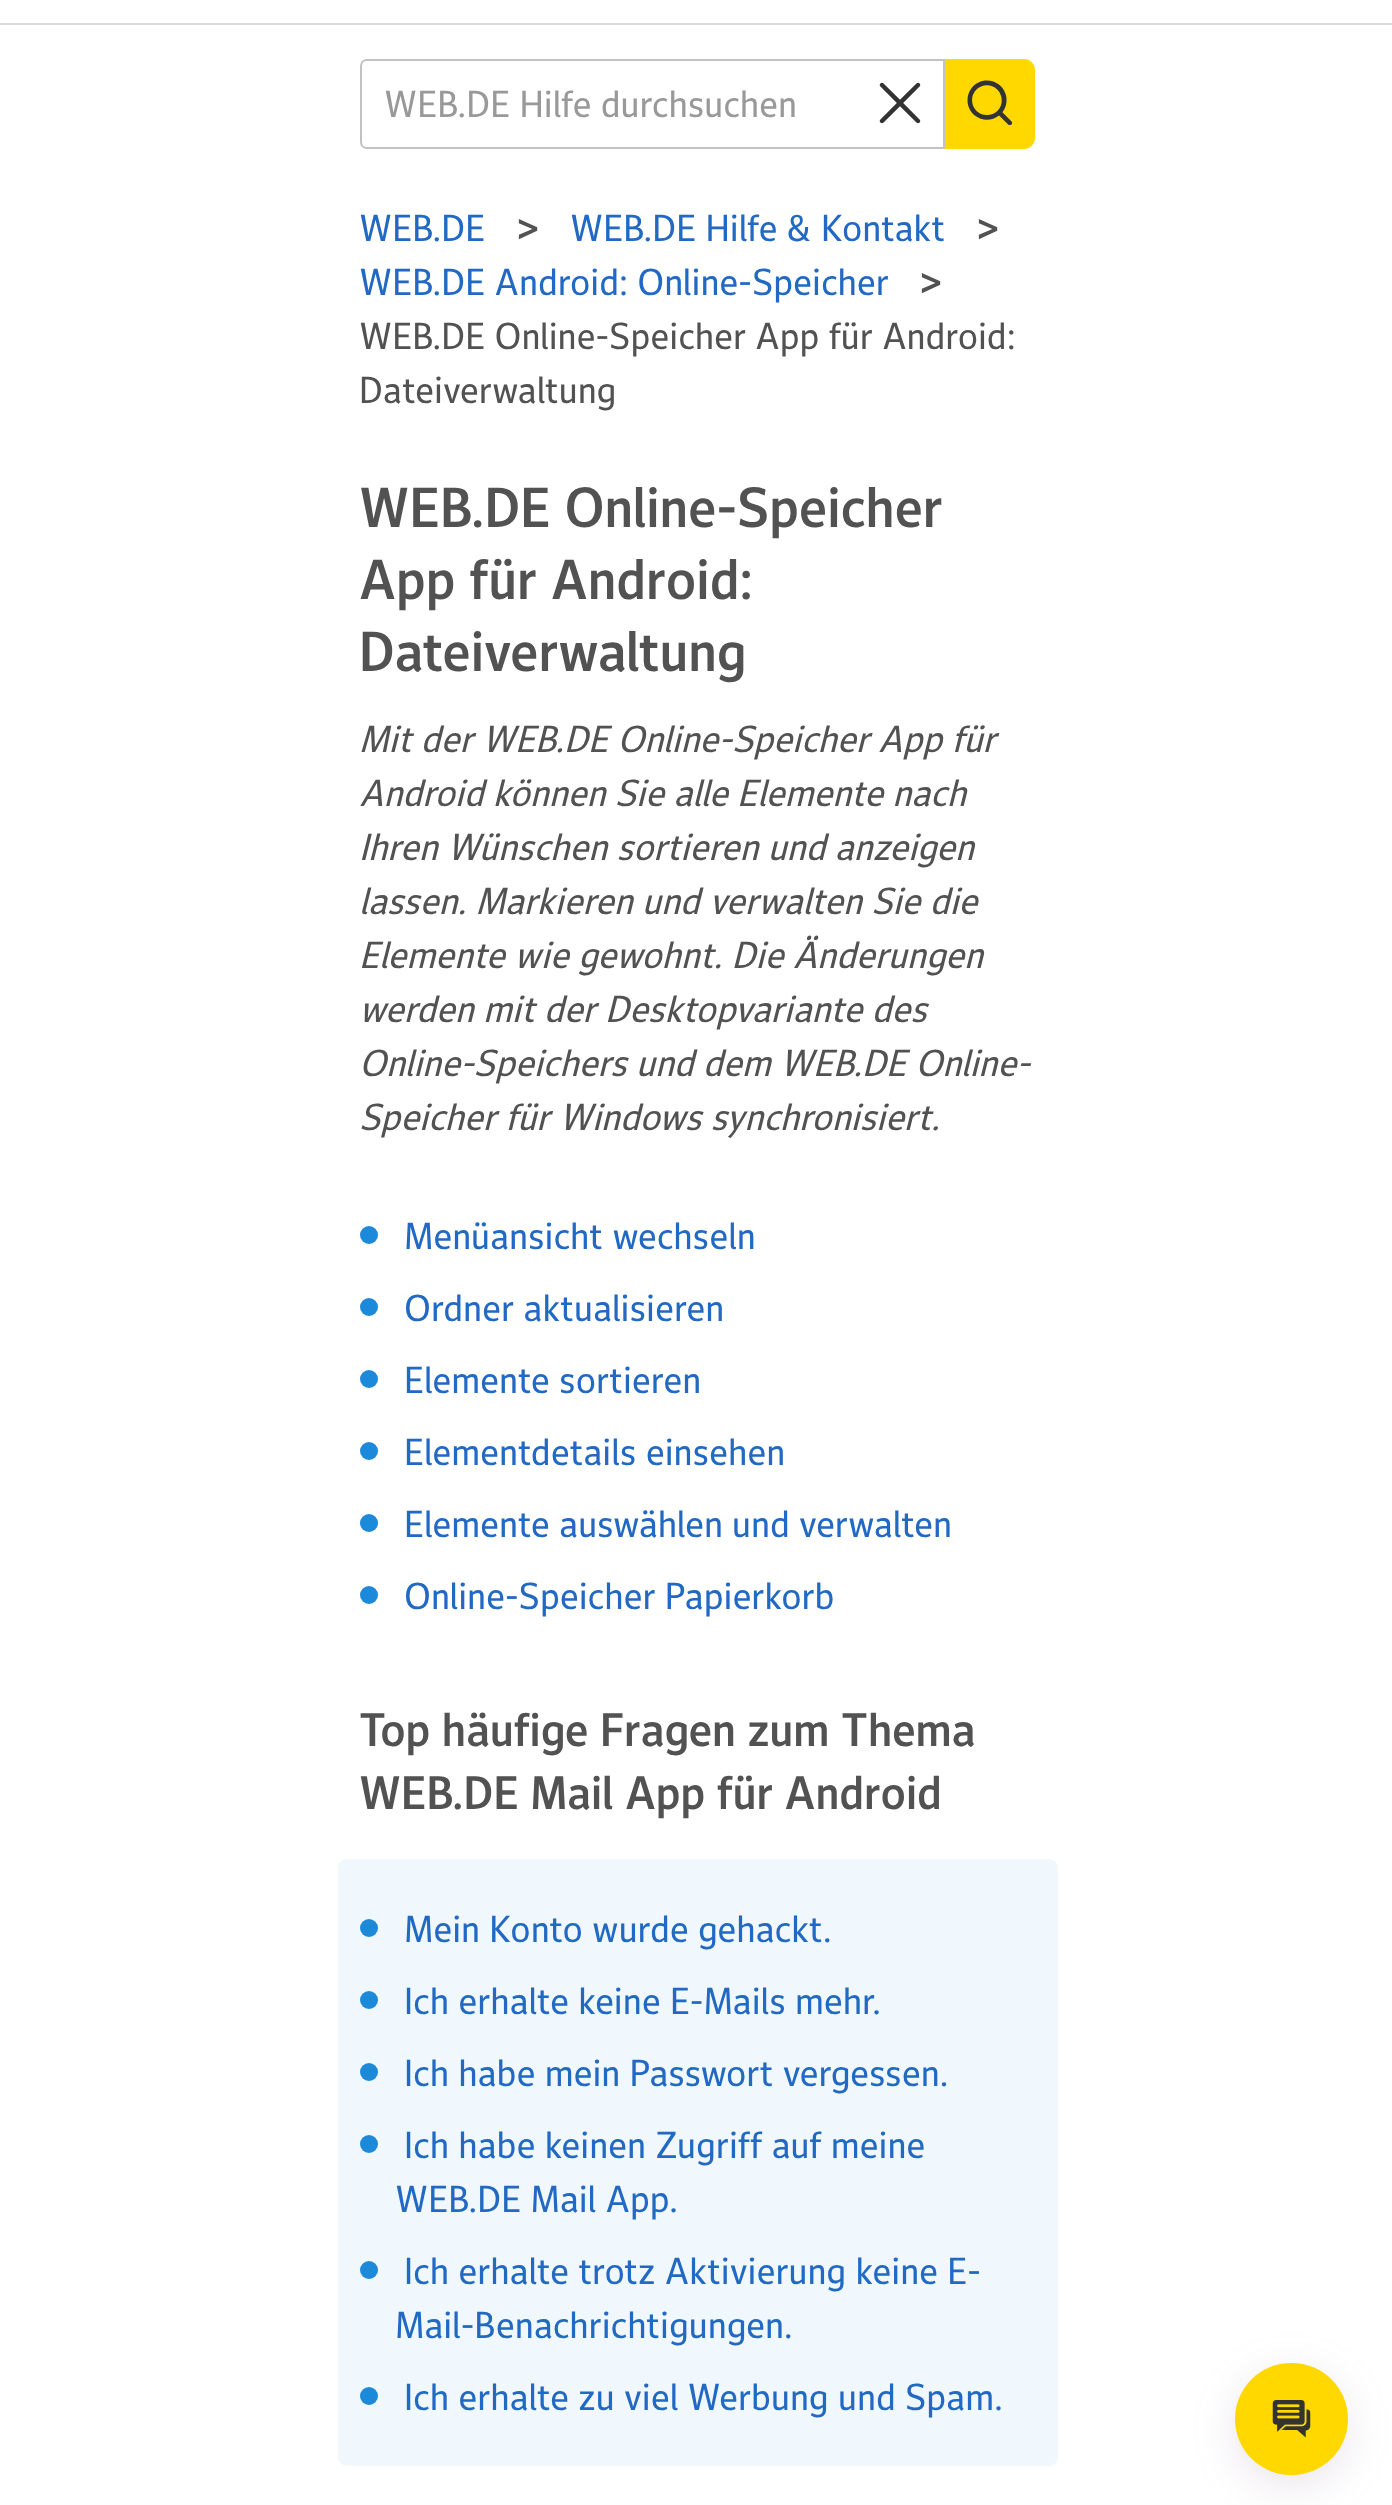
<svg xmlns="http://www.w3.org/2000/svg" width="1392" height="2505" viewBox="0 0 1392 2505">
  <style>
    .t1 { font: 36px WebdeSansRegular; fill: #999; }
    .t2 { font: 36px WebdeSansRegular; fill: #2269c3; }
    .t3 { font: bold 36px WebdeSansRegular; fill: #525252; }
    .t4 { font: 36px WebdeSansRegular; fill: #525252; }
    .t5 { font: 54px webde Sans; fill: #525252; }
    .t6 { font: italic 36px WebdeSansRegular; fill: #525252; }
    .t7 { font: 45px webde Sans; fill: #525252; }
  </style>
  <rect width="100%" height="100%" fill="#fff"/>
  <rect x="0" y="23" width="1392" height="2" fill="#dadada"/>
  <path d="M367 60H944V148H367C363.5 148 361 145.5 361 142V66C361 62.5 363.5 60 367 60Z" fill="none" stroke="#c2c2c2" stroke-width="2"/>
  <text x="384" y="117" class="t1">WEB.DE Hilfe durchsuchen</text>
  <image x="879" y="82" width="42" height="42" href="images/1.png"/>
  <path d="M946 60H1024C1029.5 60 1034 64.5 1034 70V138C1034 143.5 1029.5 148 1024 148H946Z" fill="#ffd800" stroke="#ffd800" stroke-width="2"/>
  <image x="967" y="80" width="46" height="45" href="images/2.png"/>
  <text x="359" y="241" class="t2">WEB.DE</text>
  <text x="517" y="241" class="t3">&gt;</text>
  <text x="570" y="241" class="t2">WEB.DE Hilfe &amp; Kontakt</text>
  <text x="977" y="241" class="t3">&gt;</text>
  <text x="359" y="295" class="t2">WEB.DE Android: Online-Speicher</text>
  <text x="920" y="295" class="t3">&gt;</text>
  <text x="359" y="349" class="t4">WEB.DE Online-Speicher App für Android:</text>
  <text x="359" y="403" class="t4">Dateiverwaltung</text>
  <text x="359" y="527" class="t5">WEB.DE Online-Speicher</text>
  <text x="359" y="599" class="t5">App für Android:</text>
  <text x="359" y="671" class="t5">Dateiverwaltung</text>
  <text x="359" y="752" class="t6">Mit der WEB.DE Online-Speicher App für</text>
  <text x="359" y="806" class="t6">Android können Sie alle Elemente nach</text>
  <text x="359" y="860" class="t6">Ihren Wünschen sortieren und anzeigen</text>
  <text x="359" y="914" class="t6">lassen. Markieren und verwalten Sie die</text>
  <text x="359" y="968" class="t6">Elemente wie gewohnt. Die Änderungen</text>
  <text x="359" y="1022" class="t6">werden mit der Desktopvariante des</text>
  <text x="359" y="1076" class="t6">Online-Speichers und dem WEB.DE Online-</text>
  <text x="359" y="1130" class="t6">Speicher für Windows synchronisiert.</text>
  <circle cx="369" cy="1235" r="9" fill="#1c8ad9"/>
  <text x="404" y="1249" class="t2">Menüansicht wechseln</text>
  <circle cx="369" cy="1307" r="9" fill="#1c8ad9"/>
  <text x="404" y="1321" class="t2">Ordner aktualisieren</text>
  <circle cx="369" cy="1379" r="9" fill="#1c8ad9"/>
  <text x="404" y="1393" class="t2">Elemente sortieren</text>
  <circle cx="369" cy="1451" r="9" fill="#1c8ad9"/>
  <text x="404" y="1465" class="t2">Elementdetails einsehen</text>
  <circle cx="369" cy="1523" r="9" fill="#1c8ad9"/>
  <text x="404" y="1537" class="t2">Elemente auswählen und verwalten</text>
  <circle cx="369" cy="1595" r="9" fill="#1c8ad9"/>
  <text x="404" y="1609" class="t2">Online-Speicher Papierkorb</text>
  <text x="359" y="1746" class="t7">Top häufige Fragen zum Thema</text>
  <text x="359" y="1809" class="t7">WEB.DE Mail App für Android</text>
  <rect x="338" y="1859" width="720" height="607" rx="9" fill="#f1f8fd"/>
  <circle cx="369" cy="1928" r="9" fill="#1c8ad9"/>
  <text x="404" y="1942" class="t2">Mein Konto wurde gehackt.</text>
  <circle cx="369" cy="2000" r="9" fill="#1c8ad9"/>
  <text x="404" y="2014" class="t2">Ich erhalte keine E-Mails mehr.</text>
  <circle cx="369" cy="2072" r="9" fill="#1c8ad9"/>
  <text x="404" y="2086" class="t2">Ich habe mein Passwort vergessen.</text>
  <circle cx="369" cy="2144" r="9" fill="#1c8ad9"/>
  <text x="404" y="2158" class="t2">Ich habe keinen Zugriff auf meine</text>
  <text x="395" y="2212" class="t2">WEB.DE Mail App.</text>
  <circle cx="369" cy="2270" r="9" fill="#1c8ad9"/>
  <text x="404" y="2284" class="t2">Ich erhalte trotz Aktivierung keine E-</text>
  <text x="395" y="2338" class="t2">Mail-Benachrichtigungen.</text>
  <circle cx="369" cy="2396" r="9" fill="#1c8ad9"/>
  <text x="404" y="2410" class="t2">Ich erhalte zu viel Werbung und Spam.</text>
  <rect x="1235" y="2374" width="113" height="112" rx="56" fill="#977c9c33" filter="blur(20px)"/>
  <rect x="1235" y="2363" width="113" height="112" rx="56" fill="#ffd800"/>
  <image x="1272" y="2400" width="39" height="38" href="images/3.png"/>
</svg>
